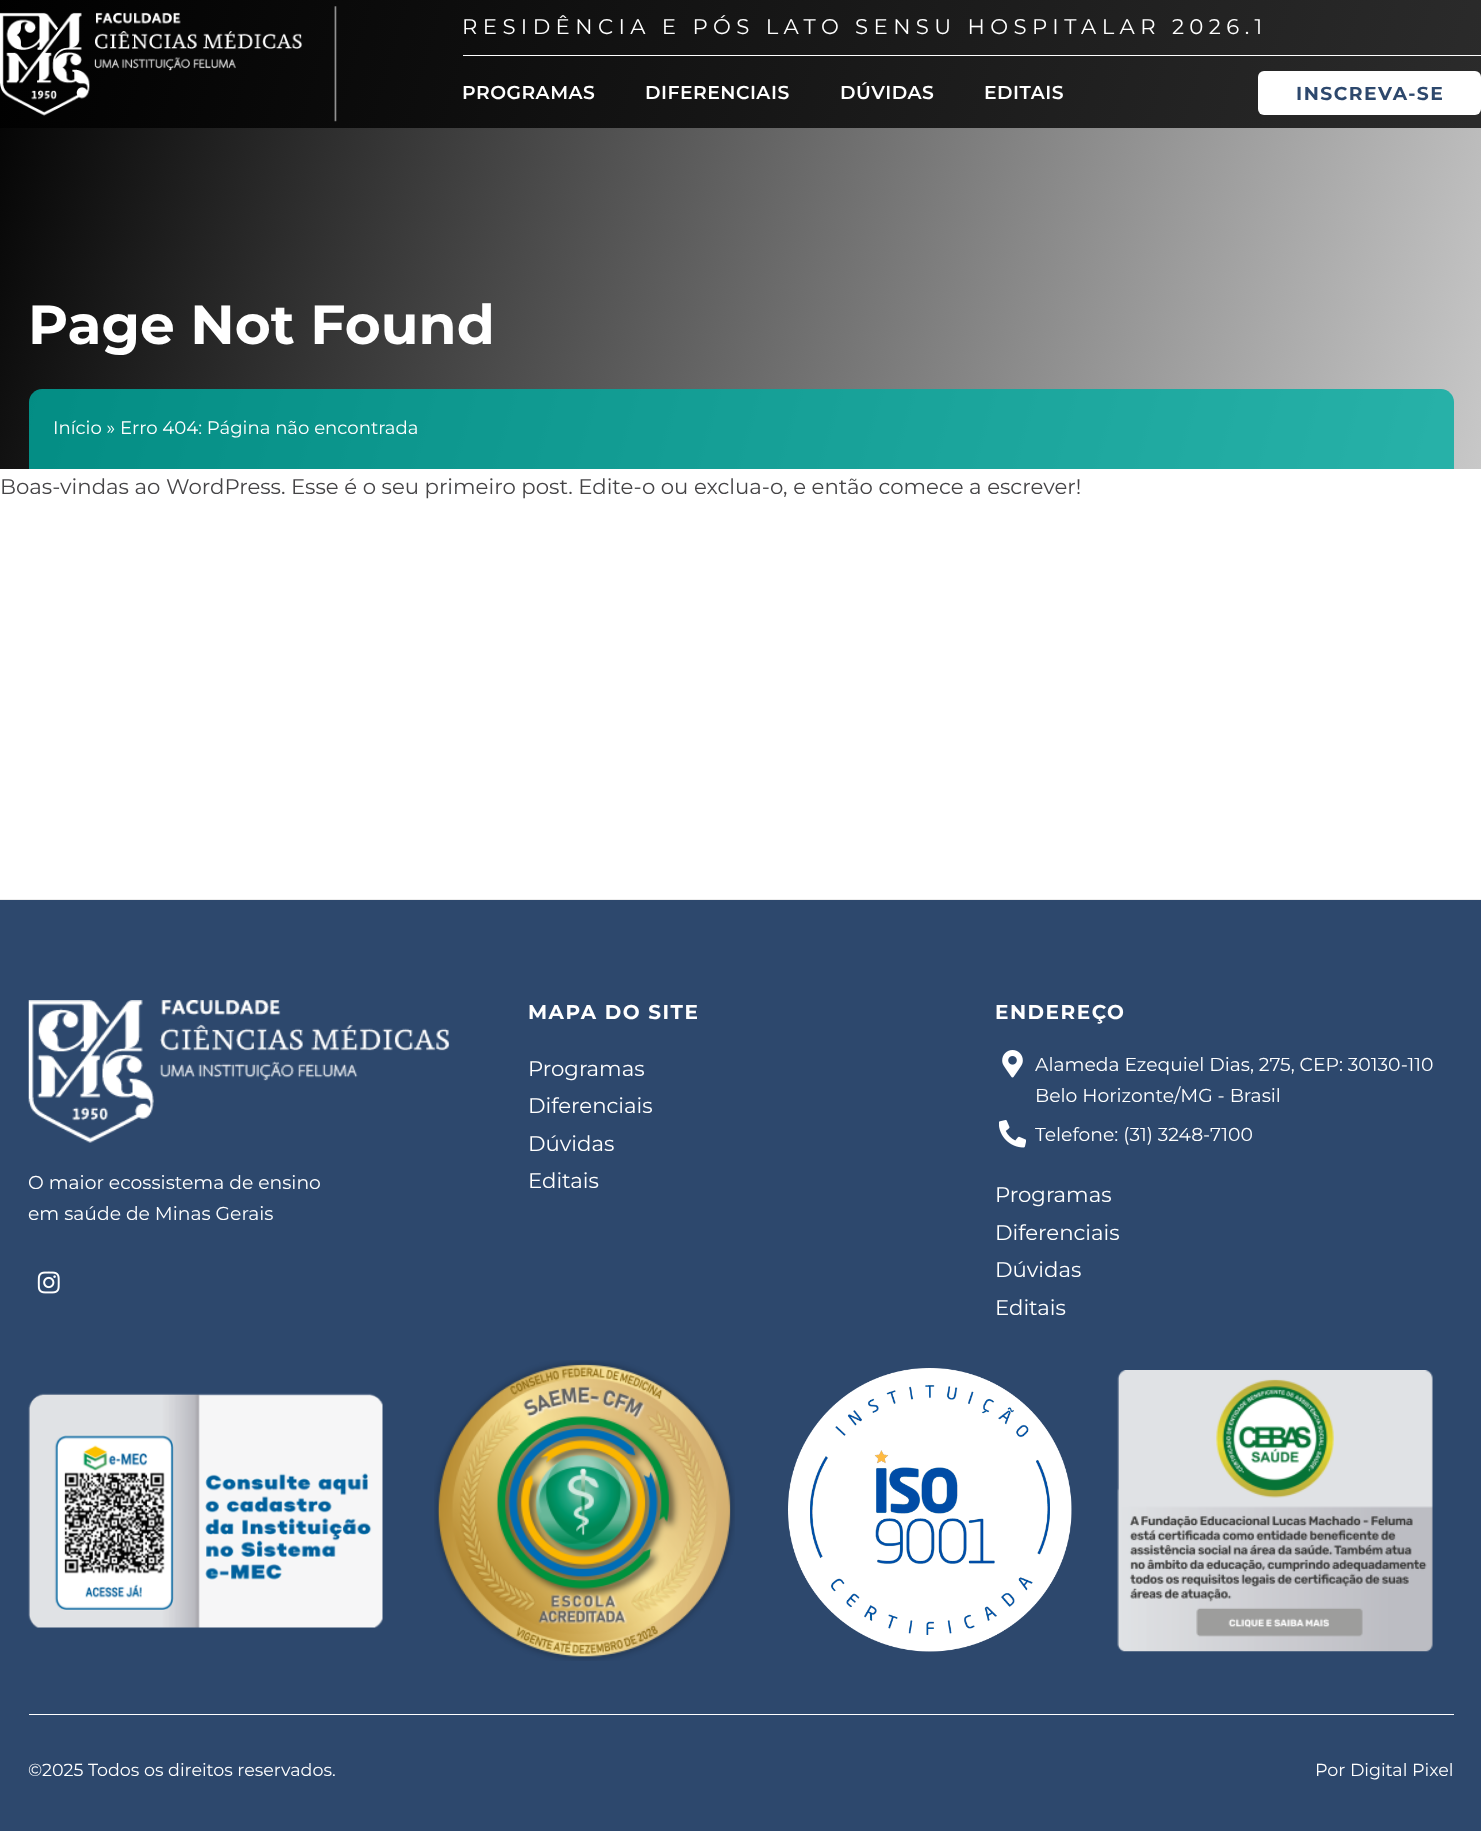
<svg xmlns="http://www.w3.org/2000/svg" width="1481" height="1831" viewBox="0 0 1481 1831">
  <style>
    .t1 { font: 21.25px Montserrat; letter-spacing: 5.4px; fill: #fff; }
    .t2 { font: 600 18.75px Montserrat; letter-spacing: 0.5px; fill: #fff; }
    .t3 { font: bold 18.75px Montserrat; letter-spacing: 1.5px; fill: #2d486d; }
    .t4 { font: bold 55px Montserrat; fill: #fff; }
    .t5 { font: 18.1px Montserrat; fill: #fff; }
    .t6 { font: 21.25px Montserrat; fill: #454446; }
    .t7 { font: 18.75px Montserrat; fill: #fff; }
    .t8 { font: bold 20px Montserrat; letter-spacing: 1.5px; fill: #fff; }
    .t9 { font: 21.25px Montserrat; fill: #fff; }
    .t10 { font: 17.5px Montserrat; fill: #fff; }
  </style>
  <defs>
    <linearGradient id="g1" gradientUnits="userSpaceOnUse" x1="-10" y1="3.5" x2="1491" y2="434"><stop offset="0" stop-color="#000"/><stop offset="1" stop-color="#2e2e2e"/></linearGradient>
    <linearGradient id="g2" gradientUnits="userSpaceOnUse" x1="-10" y1="3.5" x2="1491" y2="434"><stop offset="0" stop-color="#000"/><stop offset="1" stop-color="#c8c8c8"/></linearGradient>
  </defs>
  <rect width="100%" height="100%" fill="#fff"/>
  <rect x="0" y="0" width="1481" height="128" fill="url(#g1)"/>
  <image x="0" y="6" width="337" height="116" href="images/1.png"/>
  <text x="462" y="34" class="t1">RESIDÊNCIA E PÓS LATO SENSU HOSPITALAR 2026.1</text>
  <rect x="463" y="55" width="1018" height="1" fill="#fff"/>
  <text x="462" y="99" class="t2">PROGRAMAS</text>
  <text x="645" y="99" class="t2">DIFERENCIAIS</text>
  <text x="840" y="99" class="t2">DÚVIDAS</text>
  <text x="984" y="99" class="t2">EDITAIS</text>
  <rect x="1258" y="71" width="223" height="44" rx="6" fill="#fff"/>
  <text x="1296" y="100" class="t3">INSCREVA-SE</text>
  <rect x="0" y="128" width="1481" height="341" fill="url(#g2)"/>
  <text x="28" y="344" class="t4">Page Not Found</text>
  <path d="M42 389H1441C1448 389 1454 395 1454 402V469H29V402C29 395 35 389 42 389Z" fill="#00aca1cc"/>
  <text x="53" y="434" class="t5">Início » Erro 404: Página não encontrada</text>
  <text x="0" y="494" class="t6">Boas-vindas ao WordPress. Esse é o seu primeiro post. Edite-o ou exclua-o, e então comece a escrever!</text>
  <rect x="0" y="900" width="1481" height="931" fill="#2d486d"/>
  <rect x="0" y="899" width="1481" height="1" fill="#ededed"/>
  <image x="28" y="1000" width="422" height="143" href="images/2.png"/>
  <text x="28" y="1189" class="t7">O maior ecossistema de ensino</text>
  <text x="28" y="1220" class="t7">em saúde de Minas Gerais</text>
  <image x="37" y="1271" width="23" height="23" href="images/3.png"/>
  <text x="528" y="1019" class="t8">MAPA DO SITE</text>
  <text x="528" y="1076" class="t9">Programas</text>
  <text x="528" y="1113" class="t9">Diferenciais</text>
  <text x="528" y="1151" class="t9">Dúvidas</text>
  <text x="528" y="1188" class="t9">Editais</text>
  <text x="995" y="1019" class="t8">ENDEREÇO</text>
  <image x="1002" y="1050" width="21" height="28" href="images/4.png"/>
  <text x="1035" y="1071" class="t7">Alameda Ezequiel Dias, 275, CEP: 30130-110</text>
  <text x="1035" y="1102" class="t7">Belo Horizonte/MG - Brasil</text>
  <image x="999" y="1120" width="27" height="28" href="images/5.png"/>
  <text x="1035" y="1141" class="t7">Telefone: (31) 3248-7100</text>
  <text x="995" y="1202" class="t9">Programas</text>
  <text x="995" y="1240" class="t9">Diferenciais</text>
  <text x="995" y="1277" class="t9">Dúvidas</text>
  <text x="995" y="1315" class="t9">Editais</text>
  <image x="28" y="1393" width="355" height="235" href="images/6.png"/>
  <image x="434" y="1360" width="301" height="301" href="images/7.png"/>
  <image x="788" y="1368" width="284" height="284" href="images/8.png"/>
  <image x="1117" y="1370" width="316" height="282" href="images/9.png"/>
  <rect x="29" y="1714" width="1425" height="1" fill="#fff"/>
  <text x="28" y="1776" class="t10">©2025 Todos os direitos reservados.</text>
  <text x="1315" y="1776" class="t10">Por Digital Pixel</text>
</svg>
